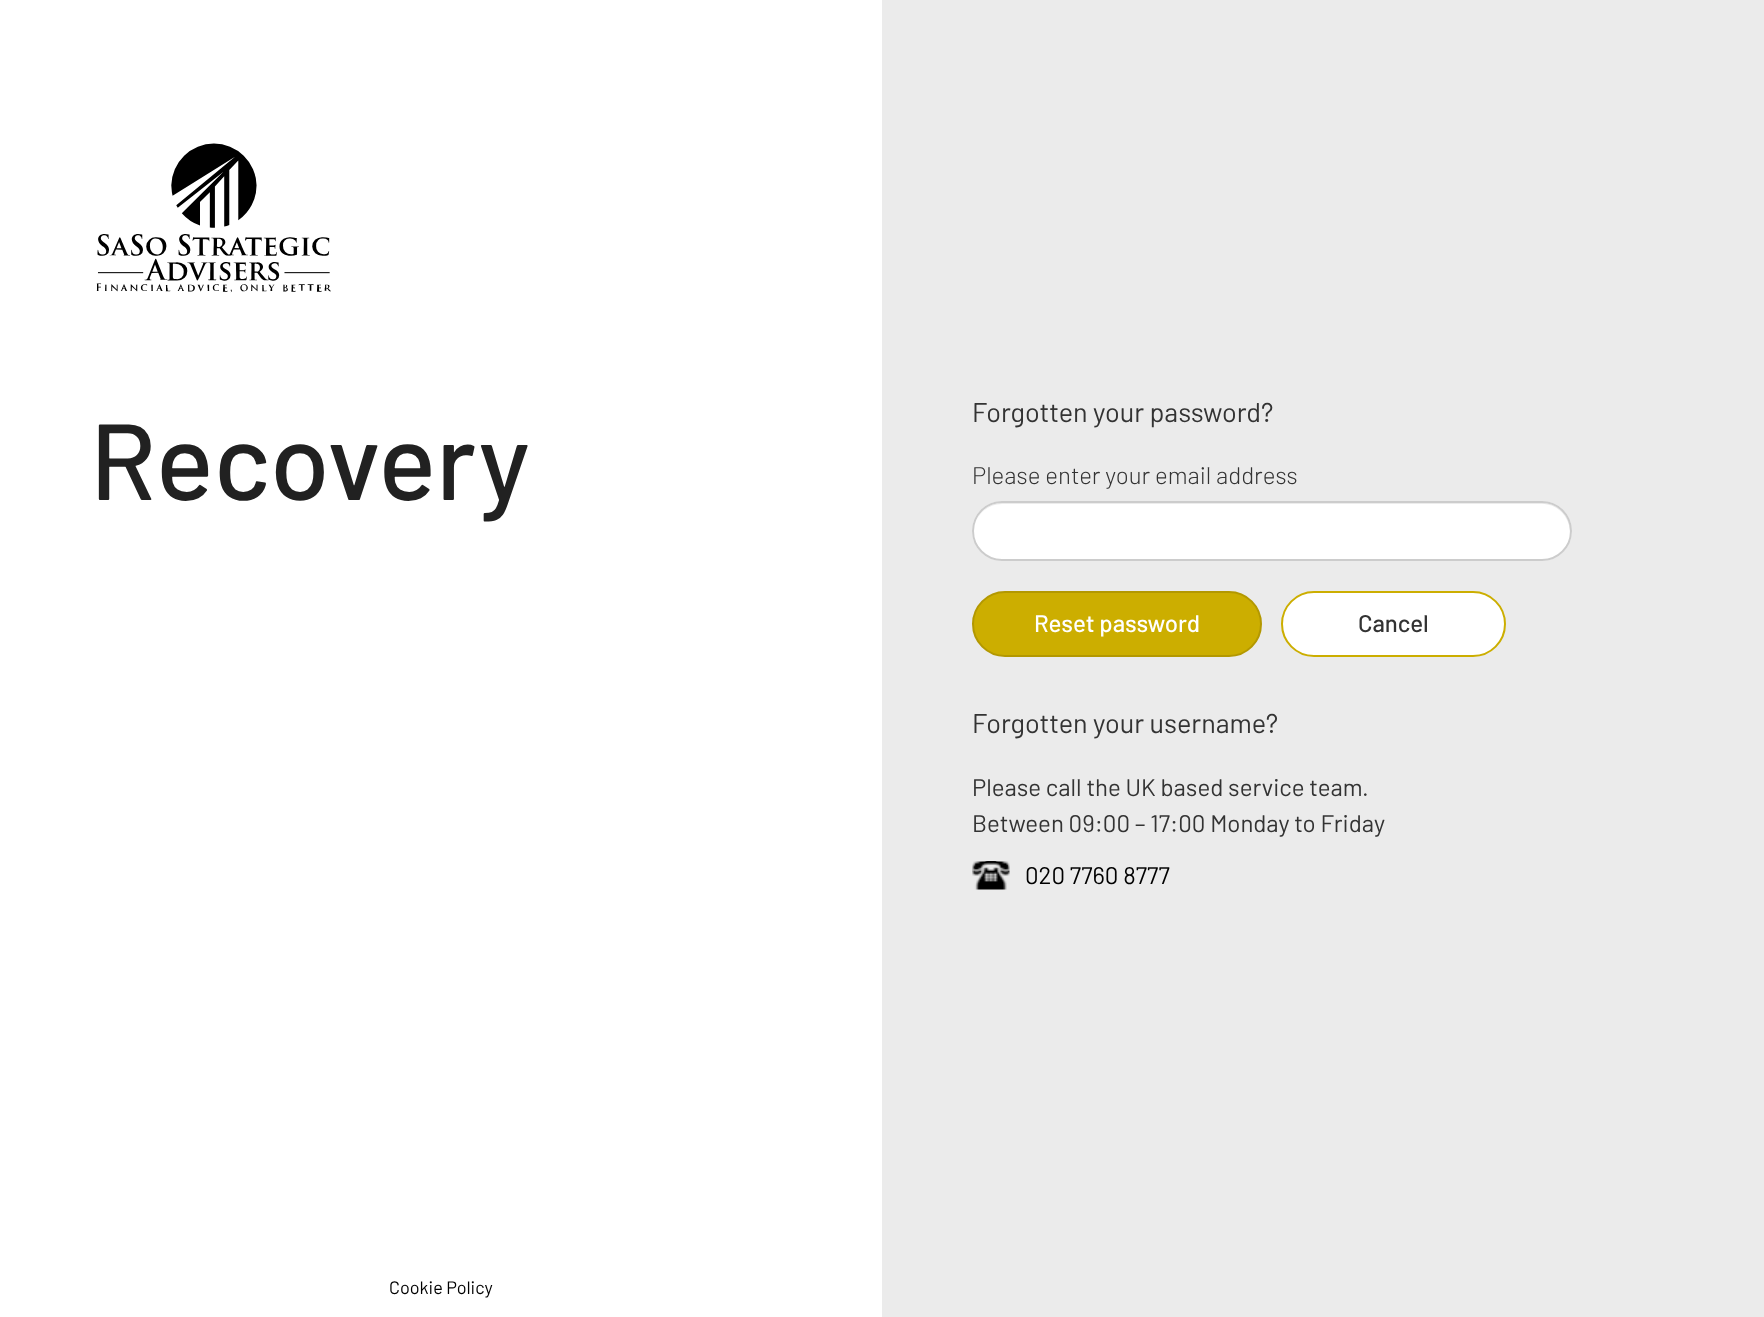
<svg xmlns="http://www.w3.org/2000/svg" width="1764" height="1317" viewBox="0 0 1764 1317">
  <style>
    .t1 { font: 500 108px Barlow; fill: #212121; }
    .t2 { font: 27px Barlow; fill: #333; }
    .t3 { font: 300 24px Barlow; fill: #333; }
    .t4 { font: 500 24px Barlow; fill: #fff; }
    .t5 { font: 500 24px Barlow; fill: #333; }
    .t6 { font: 24px Barlow; fill: #333; }
    .t7 { font: 24px Barlow; fill: #000; }
    .t8 { font: 18px Barlow; fill: #000; }
  </style>
  <rect width="100%" height="100%" fill="#fff"/>
  <rect x="882" y="0" width="882" height="1317" fill="#ebebeb"/>
  <image x="96" y="143" width="235" height="150" href="images/1.png"/>
  <text x="90" y="500" class="t1">Recovery</text>
  <text x="972" y="422" class="t2">Forgotten your password?</text>
  <text x="972" y="484" class="t3">Please enter your email address</text>
  <rect x="972" y="501" width="600" height="60" rx="30" fill="#fff"/>
  <path d="M1002 504H1542C1566 504 1578 532 1564 551C1568 546 1571 539 1571 532C1571 516 1558 503 1542 503H1002C987 503 974 516 974 532C974 517 986 504 1002 504Z" fill="#ececec"/>
  <rect x="973" y="502" width="598" height="58" rx="29" fill="none" stroke="#ccc" stroke-width="2"/>
  <rect x="973" y="592" width="288" height="64" rx="32" fill="#ccae00" stroke="#b39800" stroke-width="2"/>
  <text x="1034" y="632" class="t4">Reset password</text>
  <rect x="1282" y="592" width="223" height="64" rx="32" fill="#fff" stroke="#ccae00" stroke-width="2"/>
  <text x="1358" y="632" class="t5">Cancel</text>
  <text x="972" y="733" class="t2">Forgotten your username?</text>
  <text x="972" y="796" class="t6">Please call the UK based service team.</text>
  <text x="972" y="832" class="t6">Between 09:00 – 17:00 Monday to Friday</text>
  <image x="972" y="861" width="38" height="29" href="images/2.png"/>
  <text x="1025" y="884" class="t7">020 7760 8777</text>
  <text x="389" y="1294" class="t8">Cookie Policy</text>
</svg>
